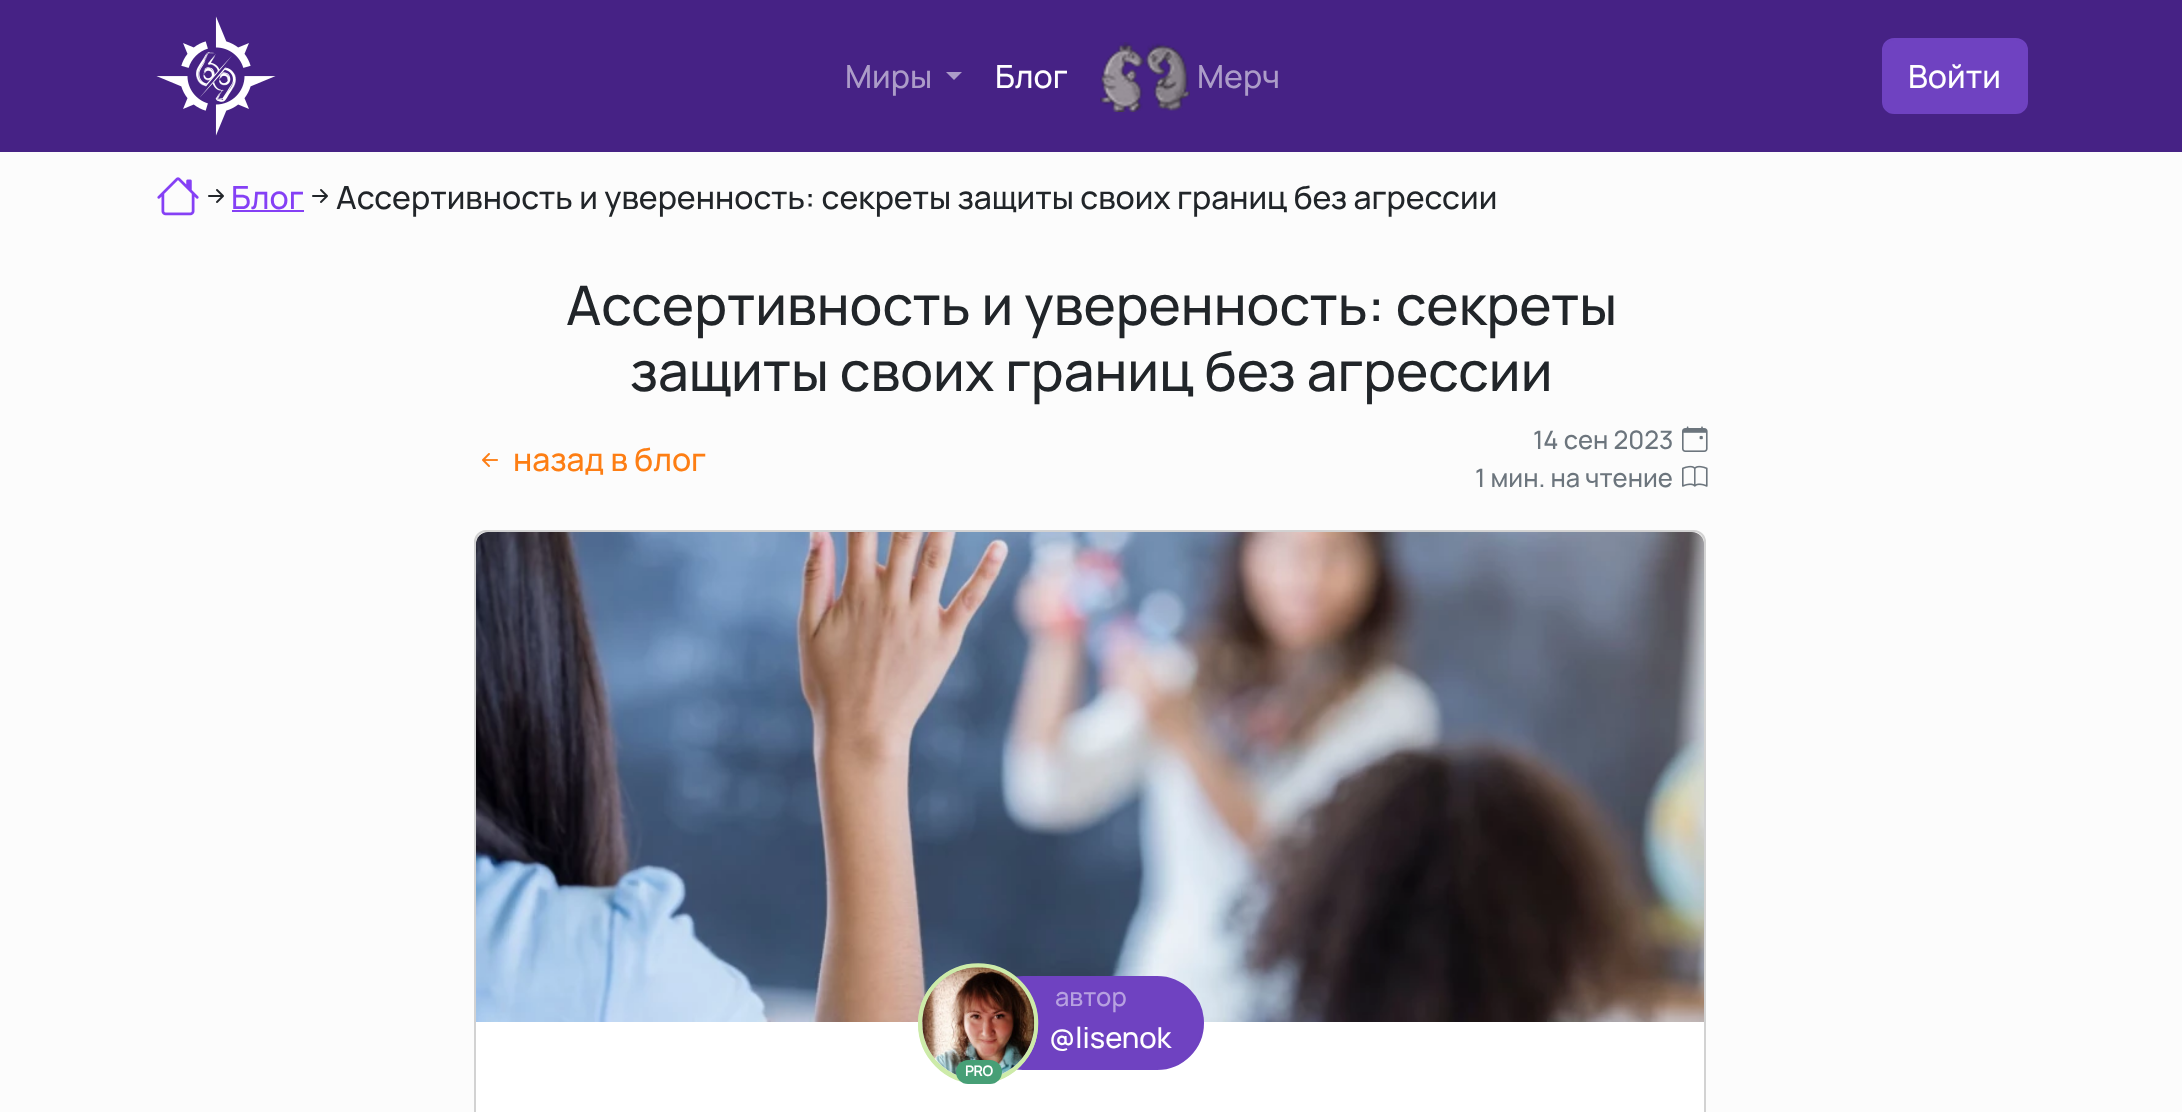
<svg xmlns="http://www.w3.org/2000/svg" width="2182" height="1112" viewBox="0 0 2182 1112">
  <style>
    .t1 { font: 500 32px Manrope; fill: #ac9cc8; }
    .t2 { font: 500 32px Manrope; fill: #fff; }
    .t3 { font: 500 32px Manrope; fill: #8540f5; }
    .t4 { font: 500 32px Manrope; fill: #212529; }
    .t5 { font: 500 54.7px Manrope; fill: #212529; }
    .t6 { font: 500 32px Manrope; fill: #fd7e14; }
    .t7 { font: 500 25.5px Manrope; fill: #6c757d; }
    .t8 { font: 500 25.5px Manrope; fill: #b7a1e0; }
    .t9 { font: 500 29px Manrope; fill: #fff; }
    .t10 { font: bold 14px Manrope; fill: #fff; }
  </style>
  <rect width="100%" height="100%" fill="#fcfcfc"/>
  <rect x="0" y="0" width="2182" height="152" fill="#462285"/>
  <image x="156" y="16" width="120" height="120" href="images/1.png"/>
  <image x="196" y="52" width="40" height="50" href="images/2.png"/>
  <text x="845" y="88" class="t1">Миры</text>
  <path d="M946 72H962L954 80Z" fill="#ac9cc8"/>
  <text x="995" y="88" class="t2">Блог</text>
  <image x="1100" y="42" width="90" height="70" href="images/3.png"/>
  <text x="1197" y="88" class="t1">Мерч</text>
  <rect x="1883" y="39" width="144" height="74" rx="11" fill="#6f42c1" stroke="#6f42c1" stroke-width="2"/>
  <text x="1908" y="88" class="t2">Войти</text>
  <image x="157" y="177" width="42" height="39" href="images/4.png"/>
  <image x="208" y="189" width="16" height="14" href="images/5.png"/>
  <text x="231" y="209" class="t3">Блог</text>
  <rect x="232" y="210" width="72" height="2" fill="#8540f5"/>
  <image x="312" y="189" width="16" height="14" href="images/5.png"/>
  <text x="336" y="209" class="t4">Ассертивность и уверенность: секреты защиты своих границ без агрессии</text>
  <text x="566" y="325" class="t5">Ассертивность и уверенность: секреты</text>
  <text x="630" y="391" class="t5">защиты своих границ без агрессии</text>
  <image x="482" y="453" width="16" height="14" href="images/6.png"/>
  <text x="513" y="471" class="t6">назад в блог</text>
  <text x="1533" y="449" class="t7">14 сен 2023</text>
  <image x="1682" y="426" width="26" height="26" href="images/7.png"/>
  <text x="1475" y="487" class="t7">1 мин. на чтение</text>
  <image x="1682" y="465" width="26" height="22" href="images/8.png"/>
  <rect x="475" y="531" width="1230" height="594" rx="11" fill="#fff" stroke="#d2d2d2" stroke-width="2"/>
  <image x="476" y="532" width="1228" height="490" href="images/9.png"/>
  <rect x="977" y="977" width="226" height="92" rx="46" fill="#6f42c1" stroke="#6f42c1" stroke-width="2"/>
  <text x="1055" y="1006" class="t8">автор</text>
  <text x="1049" y="1048" class="t9">@lisenok</text>
  <circle cx="978" cy="1024" r="58" fill="none" stroke="#cdeba9" stroke-width="4"/>
  <image x="918" y="963" width="121" height="118" href="images/10.png"/>
  <rect x="956" y="1060" width="46" height="24" rx="12" fill="#479f76"/>
  <text x="965" y="1076" class="t10">PRO</text>
</svg>
